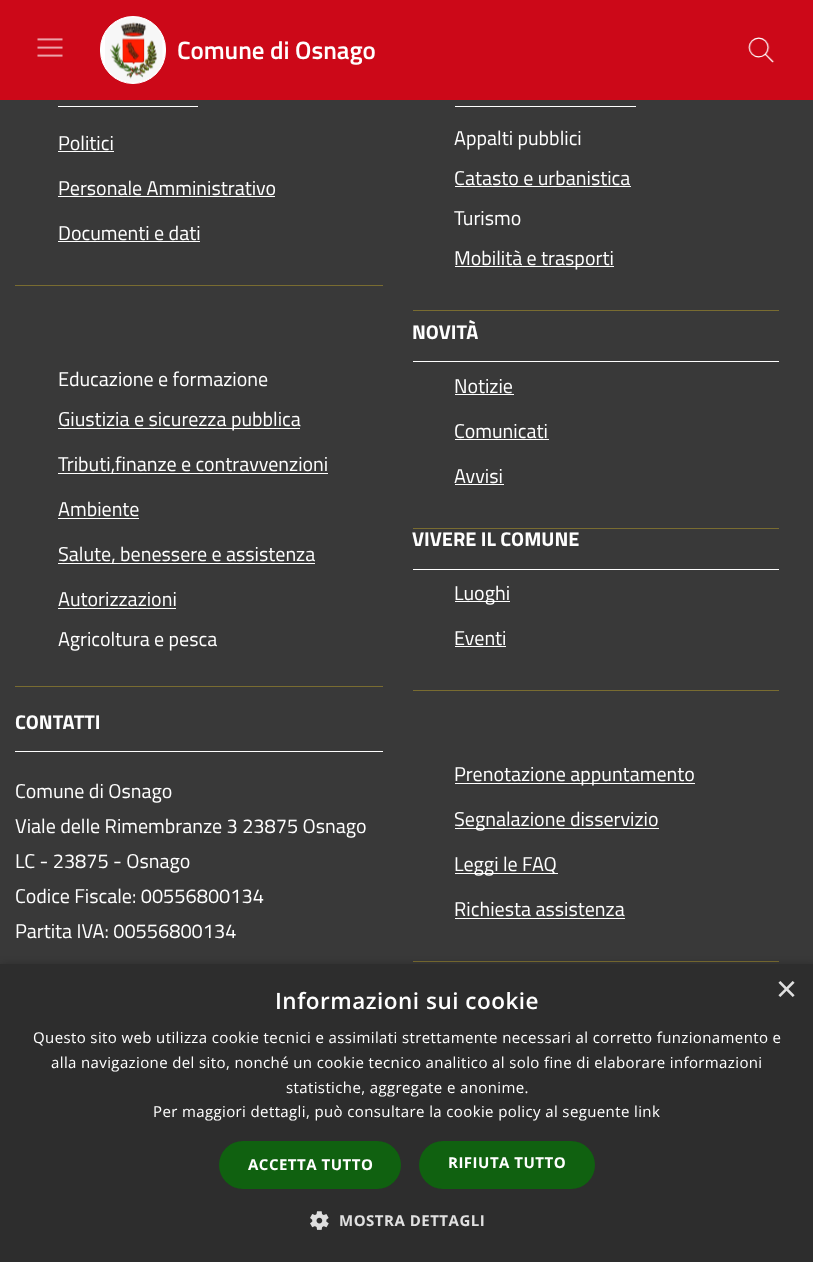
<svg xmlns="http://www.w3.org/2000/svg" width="813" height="1262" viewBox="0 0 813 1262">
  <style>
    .t1 { font: 600 25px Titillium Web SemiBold; fill: #fff; }
    .t2 { font: 20px Titillium Web; fill: #fff; }
    .t3 { font: bold 20px Titillium Web; fill: #fff; }
    .t4 { font: 36px Liberation Sans; fill: #e0e0e0; }
    .t5 { font: 600 22.5px Open Sans; letter-spacing: 0.5px; fill: #fff; }
    .t6 { font: 15px Open Sans; letter-spacing: 0.38px; fill: #fff; }
    .t7 { font: bold 15px Open Sans; letter-spacing: 0.5px; fill: #fff; }
    .t8 { font: bold 15px Open Sans; letter-spacing: 0.5px; fill: #e0e0e0; }
  </style>
  <rect width="100%" height="100%" fill="#393939"/>
  <rect x="0" y="0" width="813" height="100" fill="#cc0818"/>
  <image x="37" y="38" width="26" height="19" href="images/1.png"/>
  <rect x="100.5" y="16.5" width="65" height="67" rx="32.5" fill="#fff" stroke="#fff"/>
  <image x="105" y="17" width="58" height="66" href="images/2.png"/>
  <text x="177" y="59" class="t1">Comune di Osnago</text>
  <image x="748" y="37" width="27" height="26" href="images/3.png"/>
  <rect x="15" y="285" width="368" height="1" fill="#796c31"/>
  <rect x="58" y="106" width="140" height="1" fill="#fff"/>
  <text x="58" y="150" class="t2">Politici</text>
  <rect x="58" y="151" width="56" height="1" fill="#fff"/>
  <text x="58" y="195" class="t2">Personale Amministrativo</text>
  <rect x="58" y="196" width="217" height="1" fill="#fff"/>
  <text x="58" y="240" class="t2">Documenti e dati</text>
  <rect x="58" y="241" width="142" height="1" fill="#fff"/>
  <rect x="413" y="310" width="366" height="1" fill="#796c31"/>
  <rect x="455" y="106" width="181" height="1" fill="#fff"/>
  <text x="454" y="145" class="t2">Appalti pubblici</text>
  <text x="454" y="185" class="t2">Catasto e urbanistica</text>
  <rect x="455" y="186" width="176" height="1" fill="#fff"/>
  <text x="454" y="225" class="t2">Turismo</text>
  <rect x="455" y="266" width="159" height="1" fill="#fff"/>
  <text x="454" y="265" class="t2">Mobilità e trasporti</text>
  <rect x="15" y="686" width="368" height="1" fill="#796c31"/>
  <text x="58" y="386" class="t2">Educazione e formazione</text>
  <rect x="58" y="428" width="242" height="1" fill="#fff"/>
  <text x="58" y="426" class="t2">Giustizia e sicurezza pubblica</text>
  <rect x="58" y="473" width="270" height="1" fill="#fff"/>
  <text x="58" y="471" class="t2">Tributi,finanze e contravvenzioni</text>
  <text x="58" y="516" class="t2">Ambiente</text>
  <rect x="58" y="518" width="81" height="1" fill="#fff"/>
  <rect x="58" y="563" width="257" height="1" fill="#fff"/>
  <text x="58" y="561" class="t2">Salute, benessere e assistenza</text>
  <text x="58" y="606" class="t2">Autorizzazioni</text>
  <rect x="58" y="608" width="118" height="1" fill="#fff"/>
  <text x="58" y="646" class="t2">Agricoltura e pesca</text>
  <rect x="413" y="361" width="366" height="1" fill="#fff"/>
  <text x="412" y="339" class="t3">NOVITÀ</text>
  <rect x="413" y="528" width="366" height="1" fill="#796c31"/>
  <text x="454" y="393" class="t2">Notizie</text>
  <rect x="455" y="394" width="59" height="1" fill="#fff"/>
  <text x="454" y="438" class="t2">Comunicati</text>
  <rect x="455" y="439" width="94" height="1" fill="#fff"/>
  <text x="454" y="483" class="t2">Avvisi</text>
  <rect x="455" y="484" width="49" height="1" fill="#fff"/>
  <rect x="413" y="569" width="366" height="1" fill="#fff"/>
  <text x="412" y="546" class="t3">VIVERE IL COMUNE</text>
  <rect x="413" y="690" width="366" height="1" fill="#796c31"/>
  <rect x="455" y="601" width="55" height="1" fill="#fff"/>
  <text x="454" y="600" class="t2">Luoghi</text>
  <text x="454" y="645" class="t2">Eventi</text>
  <rect x="455" y="646" width="51" height="1" fill="#fff"/>
  <rect x="15" y="751" width="368" height="1" fill="#fff"/>
  <text x="15" y="729" class="t3">CONTATTI</text>
  <text x="15" y="798" class="t2">Comune di Osnago</text>
  <text x="15" y="833" class="t2">Viale delle Rimembranze 3 23875 Osnago</text>
  <text x="15" y="868" class="t2">LC - 23875 - Osnago</text>
  <text x="15" y="903" class="t2">Codice Fiscale: 00556800134</text>
  <text x="15" y="938" class="t2">Partita IVA: 00556800134</text>
  <rect x="413" y="961" width="366" height="1" fill="#796c31"/>
  <rect x="455" y="783" width="240" height="1" fill="#fff"/>
  <text x="454" y="781" class="t2">Prenotazione appuntamento</text>
  <rect x="455" y="828" width="204" height="1" fill="#fff"/>
  <text x="454" y="826" class="t2">Segnalazione disservizio</text>
  <rect x="455" y="873" width="103" height="1" fill="#fff"/>
  <text x="454" y="871" class="t2">Leggi le FAQ</text>
  <text x="454" y="916" class="t2">Richiesta assistenza</text>
  <rect x="455" y="918" width="170" height="1" fill="#fff"/>
  <rect x="1" y="966" width="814" height="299" fill="#00000059" filter="blur(5px)"/>
  <rect x="0" y="964" width="813" height="298" fill="#2d2d2d"/>
  <text x="776" y="1001" class="t4">×</text>
  <text x="275" y="1009" class="t5">Informazioni sui cookie</text>
  <text x="33" y="1043" class="t6">Questo sito web utilizza cookie tecnici e assimilati strettamente necessari al corretto funzionamento e</text>
  <text x="51" y="1068" class="t6">alla navigazione del sito, nonché un cookie tecnico analitico al solo fine di elaborare informazioni</text>
  <text x="286" y="1093" class="t6">statistiche, aggregate e anonime.</text>
  <text x="153" y="1117" class="t6">Per maggiori dettagli, può consultare la cookie policy al seguente link</text>
  <rect x="219" y="1141" width="182" height="48" rx="24" fill="#106110"/>
  <text x="248" y="1170" class="t7">ACCETTA TUTTO</text>
  <rect x="419" y="1141" width="176" height="48" rx="24" fill="#106110"/>
  <text x="448" y="1168" class="t7">RIFIUTA TUTTO</text>
  <image x="310" y="1211" width="19" height="19" href="images/4.png"/>
  <text x="339" y="1226" class="t8">MOSTRA DETTAGLI</text>
</svg>
